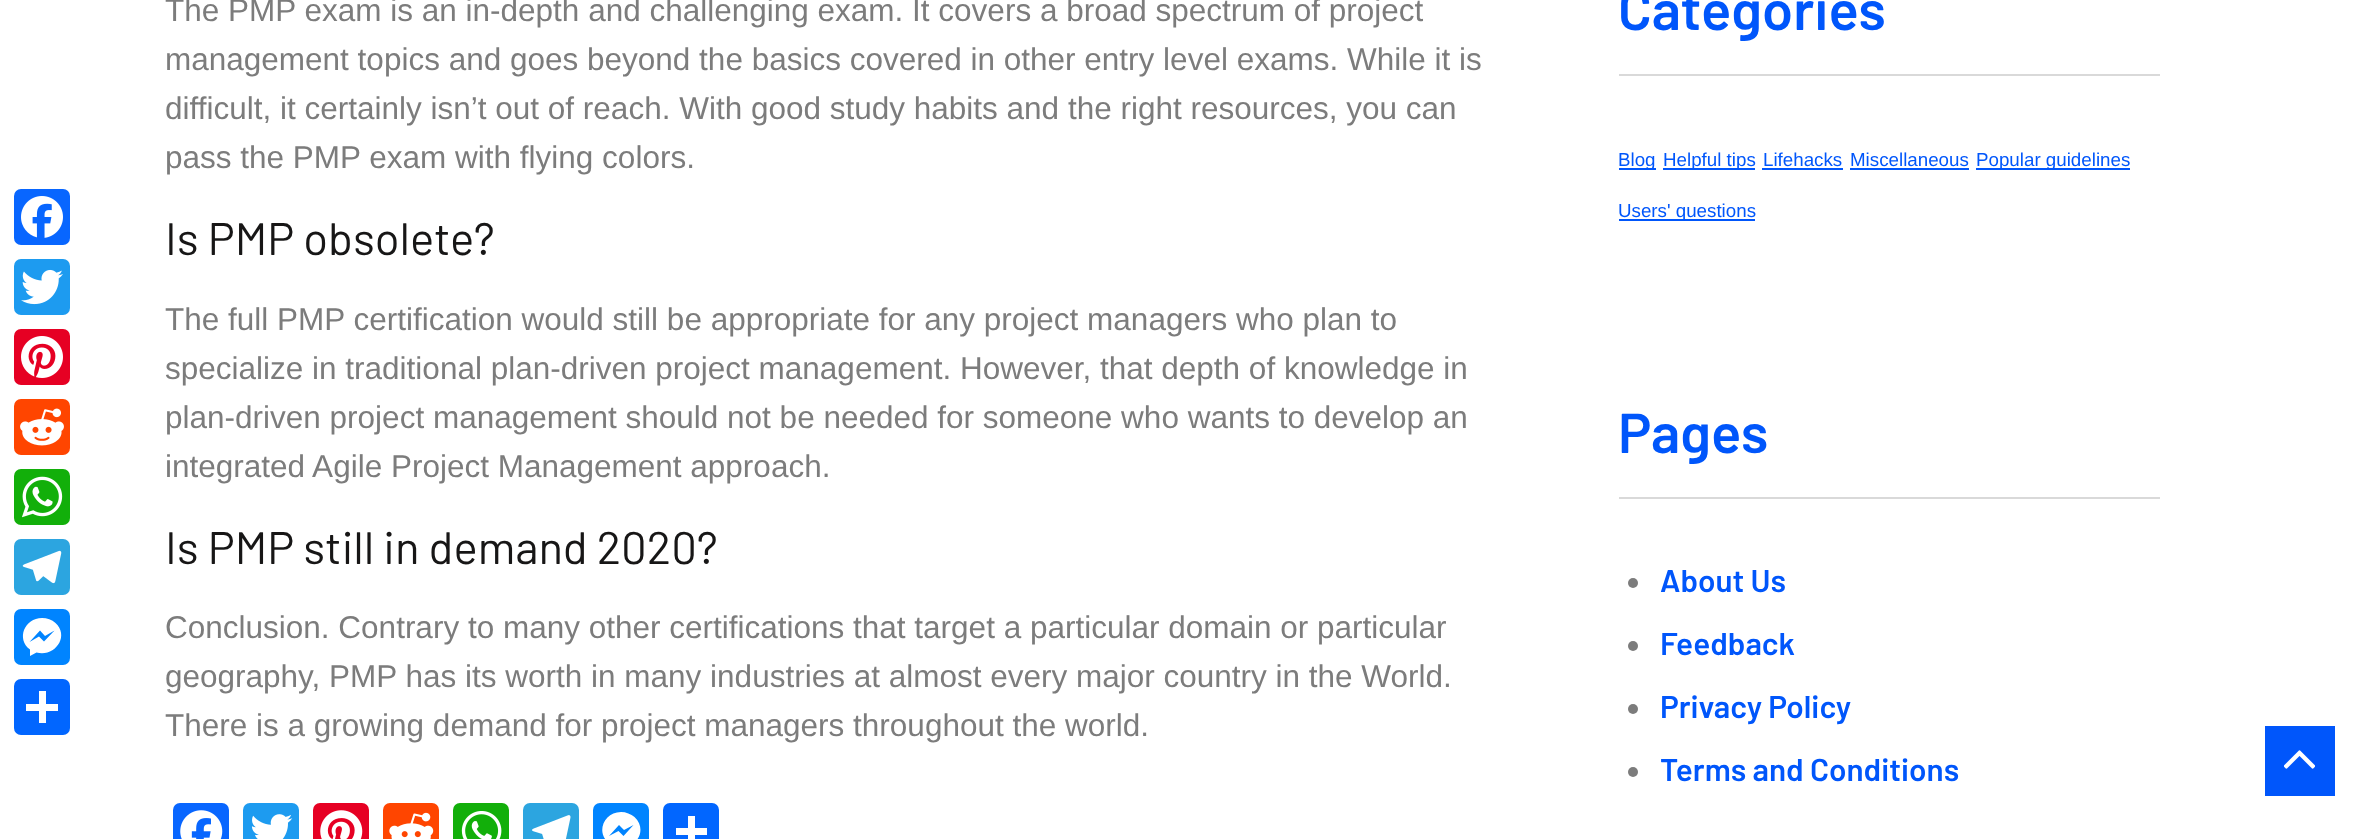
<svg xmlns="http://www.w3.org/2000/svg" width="2378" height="839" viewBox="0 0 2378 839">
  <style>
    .t1 { font: 31.5px Liberation Sans; fill: #7c7c7c; }
    .t2 { font: 45.5px Barlow; fill: #171616; }
    .t3 { font: 600 56px Barlow; fill: #0056fb; }
    .t4 { font: 18.75px Liberation Sans; fill: #0056fb; }
    .t5 { font: 600 31.5px Barlow; fill: #0056fb; }
  </style>
  <rect width="100%" height="100%" fill="#fff"/>
  <rect x="14" y="189" width="56" height="56" rx="7" fill="#0866ff"/>
  <image x="21" y="196" width="42" height="42" href="images/1.png"/>
  <rect x="14" y="259" width="56" height="56" rx="7" fill="#1d9bf0"/>
  <image x="21" y="269" width="42" height="36" href="images/2.png"/>
  <rect x="14" y="329" width="56" height="56" rx="7" fill="#e60023"/>
  <image x="21" y="336" width="42" height="42" href="images/3.png"/>
  <rect x="14" y="399" width="56" height="56" rx="7" fill="#ff4500"/>
  <image x="20" y="408" width="44" height="38" href="images/4.png"/>
  <rect x="14" y="469" width="56" height="56" rx="7" fill="#12af0a"/>
  <image x="22" y="476" width="41" height="42" href="images/5.png"/>
  <rect x="14" y="539" width="56" height="56" rx="7" fill="#2ca5e0"/>
  <image x="22" y="550" width="40" height="34" href="images/6.png"/>
  <rect x="14" y="609" width="56" height="56" rx="7" fill="#0084ff"/>
  <path d="M42 618C24.5 618 16 639 30 649.5V656L36.5 652.5C54.5 657.5 70 636.5 55.5 623C52 619.5 47 618 42 618M44 641.5L39 636.5L29.5 642L40 630.5L45 636L54.5 630.5Z" fill="#fff"/>
  <rect x="14" y="679" width="56" height="56" rx="7" fill="#0166ff"/>
  <rect x="39" y="691" width="7" height="32" fill="#fff"/>
  <rect x="26" y="704" width="32" height="7" fill="#fff"/>
  <text x="165" y="21" class="t1">The PMP exam is an in-depth and challenging exam. It covers a broad spectrum of project</text>
  <text x="165" y="70" class="t1">management topics and goes beyond the basics covered in other entry level exams. While it is</text>
  <text x="165" y="119" class="t1">difficult, it certainly isn’t out of reach. With good study habits and the right resources, you can</text>
  <text x="165" y="168" class="t1">pass the PMP exam with flying colors.</text>
  <text x="165" y="255" class="t2">Is PMP obsolete?</text>
  <text x="165" y="330" class="t1">The full PMP certification would still be appropriate for any project managers who plan to</text>
  <text x="165" y="379" class="t1">specialize in traditional plan-driven project management. However, that depth of knowledge in</text>
  <text x="165" y="428" class="t1">plan-driven project management should not be needed for someone who wants to develop an</text>
  <text x="165" y="477" class="t1">integrated Agile Project Management approach.</text>
  <text x="165" y="564" class="t2">Is PMP still in demand 2020?</text>
  <text x="165" y="638" class="t1">Conclusion. Contrary to many other certifications that target a particular domain or particular</text>
  <text x="165" y="687" class="t1">geography, PMP has its worth in many industries at almost every major country in the World.</text>
  <text x="165" y="736" class="t1">There is a growing demand for project managers throughout the world.</text>
  <rect x="173" y="803" width="56" height="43" rx="7" fill="#0866ff"/>
  <image x="180" y="810" width="43" height="29" href="images/7.png"/>
  <rect x="243" y="803" width="56" height="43" rx="7" fill="#1d9bf0"/>
  <image x="251" y="814" width="42" height="25" href="images/8.png"/>
  <rect x="313" y="803" width="56" height="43" rx="7" fill="#e60023"/>
  <image x="320" y="810" width="43" height="29" href="images/9.png"/>
  <rect x="383" y="803" width="56" height="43" rx="7" fill="#ff4500"/>
  <image x="389" y="812" width="45" height="27" href="images/10.png"/>
  <rect x="453" y="803" width="56" height="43" rx="7" fill="#12af0a"/>
  <image x="461" y="811" width="41" height="28" href="images/11.png"/>
  <rect x="523" y="803" width="56" height="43" rx="7" fill="#2ca5e0"/>
  <image x="532" y="815" width="39" height="24" href="images/12.png"/>
  <rect x="593" y="803" width="56" height="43" rx="7" fill="#0084ff"/>
  <path d="M621 812C604 812 595 833 609.5 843.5V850.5L616 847C633.5 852 649.5 831 634.5 817C631 814 626 812 621 812M623.5 836L618.5 831L609 836L619 825L624 830L633.5 825Z" fill="#fff"/>
  <rect x="663" y="803" width="56" height="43" rx="7" fill="#0166ff"/>
  <rect x="688" y="816" width="7" height="23" fill="#fff"/>
  <rect x="676" y="828" width="31" height="7" fill="#fff"/>
  <rect x="1619" y="74" width="541" height="2" fill="#d9d9d9"/>
  <text x="1618" y="30" class="t3">Categories</text>
  <rect x="1619" y="168" width="37" height="2" fill="#0056fb"/>
  <text x="1618" y="166" class="t4">Blog</text>
  <rect x="1663" y="168" width="92" height="2" fill="#0056fb"/>
  <text x="1663" y="166" class="t4">Helpful tips</text>
  <text x="1763" y="166" class="t4">Lifehacks</text>
  <rect x="1762" y="168" width="81" height="2" fill="#0056fb"/>
  <text x="1850" y="166" class="t4">Miscellaneous</text>
  <rect x="1850" y="168" width="119" height="2" fill="#0056fb"/>
  <rect x="1976" y="168" width="154" height="2" fill="#0056fb"/>
  <text x="1976" y="166" class="t4">Popular guidelines</text>
  <rect x="1619" y="219" width="136" height="2" fill="#0056fb"/>
  <text x="1618" y="217" class="t4">Users' questions</text>
  <rect x="1619" y="497" width="541" height="2" fill="#d9d9d9"/>
  <text x="1618" y="453" class="t3">Pages</text>
  <circle cx="1633" cy="583" r="5" fill="#7c7c7c"/>
  <text x="1660" y="592" class="t5">About Us</text>
  <circle cx="1633" cy="646" r="5" fill="#7c7c7c"/>
  <text x="1660" y="655" class="t5">Feedback</text>
  <circle cx="1633" cy="709" r="5" fill="#7c7c7c"/>
  <text x="1660" y="718" class="t5">Privacy Policy</text>
  <circle cx="1633" cy="772" r="5" fill="#7c7c7c"/>
  <text x="1660" y="781" class="t5">Terms and Conditions</text>
  <rect x="2265" y="726" width="70" height="70" fill="#0056fb"/>
  <image x="2284" y="750" width="31" height="19" href="images/13.png"/>
</svg>
